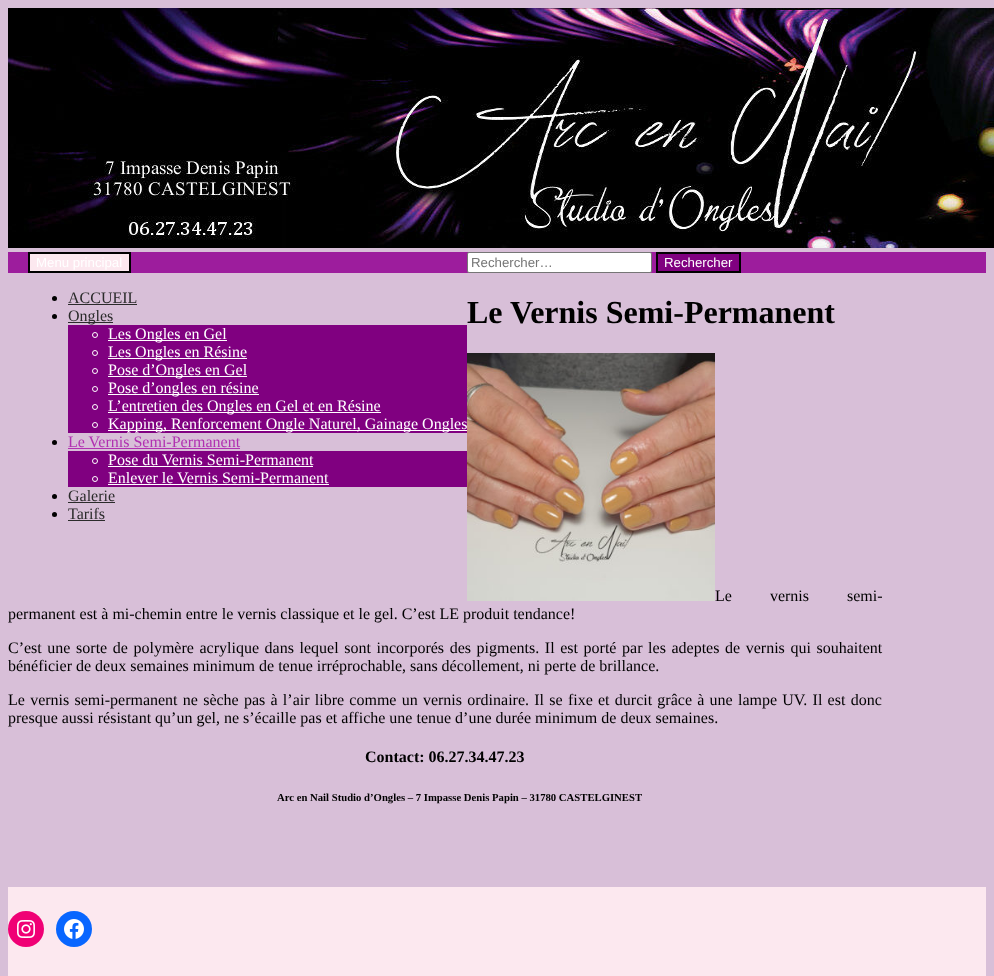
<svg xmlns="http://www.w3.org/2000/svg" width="994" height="976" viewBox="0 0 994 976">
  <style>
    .t1 { font: 13.25px Liberation Sans; fill: #fff; }
    .t2 { font: 16px Liberation Serif; fill: #2b2b2b; }
    .t3 { font: 16px Liberation Serif; fill: #fff; }
    .t4 { font: 16px Liberation Serif; fill: #b131b1; }
    .t5 { font: 13.25px Liberation Sans; fill: #757575; }
    .t6 { font: bold 32px Liberation Serif; fill: #000; }
    .t7 { font: 16px Liberation Serif; fill: #000; }
    .t8 { font: bold 16px Liberation Serif; fill: #000; }
    .t9 { font: bold 10.7px Liberation Serif; fill: #000; }
  </style>
  <rect width="100%" height="100%" fill="#d8bfd8"/>
  <image x="8" y="8" width="986" height="240" href="images/1.png"/>
  <rect x="8" y="252" width="978" height="21" fill="#9d1d9d"/>
  <rect x="29" y="253" width="101" height="19" fill="#fce8ef" stroke="#000" stroke-width="2"/>
  <text x="36" y="267" class="t1">Menu principal</text>
  <circle cx="54.5" cy="298.5" r="2.5" fill="#000"/>
  <text x="68" y="303" class="t2">ACCUEIL</text>
  <rect x="68" y="304" width="69" height="1" fill="#2b2b2b"/>
  <circle cx="54.5" cy="316.5" r="2.5" fill="#000"/>
  <rect x="68" y="322" width="45" height="1" fill="#2b2b2b"/>
  <text x="68" y="321" class="t2">Ongles</text>
  <rect x="68" y="325" width="399" height="108" fill="#800080"/>
  <circle cx="95" cy="335" r="2.5" fill="none" stroke="#fff"/>
  <rect x="108" y="340" width="119" height="1" fill="#fff"/>
  <text x="108" y="339" class="t3">Les Ongles en Gel</text>
  <circle cx="95" cy="353" r="2.5" fill="none" stroke="#fff"/>
  <rect x="108" y="358" width="139" height="1" fill="#fff"/>
  <text x="108" y="357" class="t3">Les Ongles en Résine</text>
  <circle cx="95" cy="371" r="2.5" fill="none" stroke="#fff"/>
  <rect x="108" y="376" width="139" height="1" fill="#fff"/>
  <text x="108" y="375" class="t3">Pose d’Ongles en Gel</text>
  <circle cx="95" cy="389" r="2.5" fill="none" stroke="#fff"/>
  <rect x="108" y="394" width="151" height="1" fill="#fff"/>
  <text x="108" y="393" class="t3">Pose d’ongles en résine</text>
  <circle cx="95" cy="407" r="2.5" fill="none" stroke="#fff"/>
  <rect x="108" y="412" width="273" height="1" fill="#fff"/>
  <text x="108" y="411" class="t3">L’entretien des Ongles en Gel et en Résine</text>
  <circle cx="95" cy="425" r="2.5" fill="none" stroke="#fff"/>
  <rect x="108" y="430" width="359" height="1" fill="#fff"/>
  <text x="108" y="429" class="t3">Kapping, Renforcement Ongle Naturel, Gainage Ongles</text>
  <circle cx="54.5" cy="442.5" r="2.5" fill="#000"/>
  <text x="68" y="447" class="t4">Le Vernis Semi-Permanent</text>
  <rect x="68" y="448" width="172" height="1" fill="#b131b1"/>
  <rect x="68" y="451" width="399" height="36" fill="#800080"/>
  <circle cx="95" cy="461" r="2.5" fill="none" stroke="#fff"/>
  <text x="108" y="465" class="t3">Pose du Vernis Semi-Permanent</text>
  <rect x="108" y="466" width="205" height="1" fill="#fff"/>
  <circle cx="95" cy="479" r="2.5" fill="none" stroke="#fff"/>
  <text x="108" y="483" class="t3">Enlever le Vernis Semi-Permanent</text>
  <rect x="108" y="484" width="221" height="1" fill="#fff"/>
  <circle cx="54.5" cy="496.5" r="2.5" fill="#000"/>
  <text x="68" y="501" class="t2">Galerie</text>
  <rect x="68" y="502" width="47" height="1" fill="#2b2b2b"/>
  <circle cx="54.5" cy="514.5" r="2.5" fill="#000"/>
  <text x="68" y="519" class="t2">Tarifs</text>
  <rect x="68" y="520" width="37" height="1" fill="#2b2b2b"/>
  <rect x="467.5" y="252.5" width="184" height="20" rx="1.5" fill="#fff" stroke="#767676"/>
  <text x="471" y="267" class="t5">Rechercher…</text>
  <rect x="657" y="253" width="83" height="19" fill="#800080" stroke="#000" stroke-width="2"/>
  <text x="664" y="267" class="t1">Rechercher</text>
  <text x="467" y="323" class="t6">Le Vernis Semi-Permanent</text>
  <image x="467" y="353" width="248" height="248" href="images/2.png"/>
  <text x="715" y="601" word-spacing="34" class="t7">Le vernis semi-</text>
  <text x="8" y="619" class="t7">permanent est à mi-chemin entre le vernis classique et le gel. C’est LE produit tendance!</text>
  <text x="8" y="653" word-spacing="1.6" class="t7">C’est une sorte de polymère acrylique dans lequel sont incorporés des pigments. Il est porté par les adeptes de vernis qui souhaitent</text>
  <text x="8" y="671" class="t7">bénéficier de deux semaines minimum de tenue irréprochable, sans décollement, ni perte de brillance.</text>
  <text x="8" y="705" word-spacing="1.25" class="t7">Le vernis semi-permanent ne sèche pas à l’air libre comme un vernis ordinaire. Il se fixe et durcit grâce à une lampe UV. Il est donc</text>
  <text x="8" y="723" class="t7">presque aussi résistant qu’un gel, ne s’écaille pas et affiche une tenue d’une durée minimum de deux semaines.</text>
  <text x="365" y="762" class="t8">Contact: 06.27.34.47.23</text>
  <text x="277" y="801" class="t9">Arc en Nail Studio d’Ongles – 7 Impasse Denis Papin – 31780 CASTELGINEST</text>
  <rect x="8" y="887" width="978" height="89" fill="#fce8ef"/>
  <circle cx="26" cy="929" r="18" fill="#f00075"/>
  <image x="17" y="920" width="18" height="18" href="images/3.png"/>
  <circle cx="74" cy="929" r="18" fill="#0866ff"/>
  <image x="64" y="919" width="20" height="20" href="images/4.png"/>
</svg>
